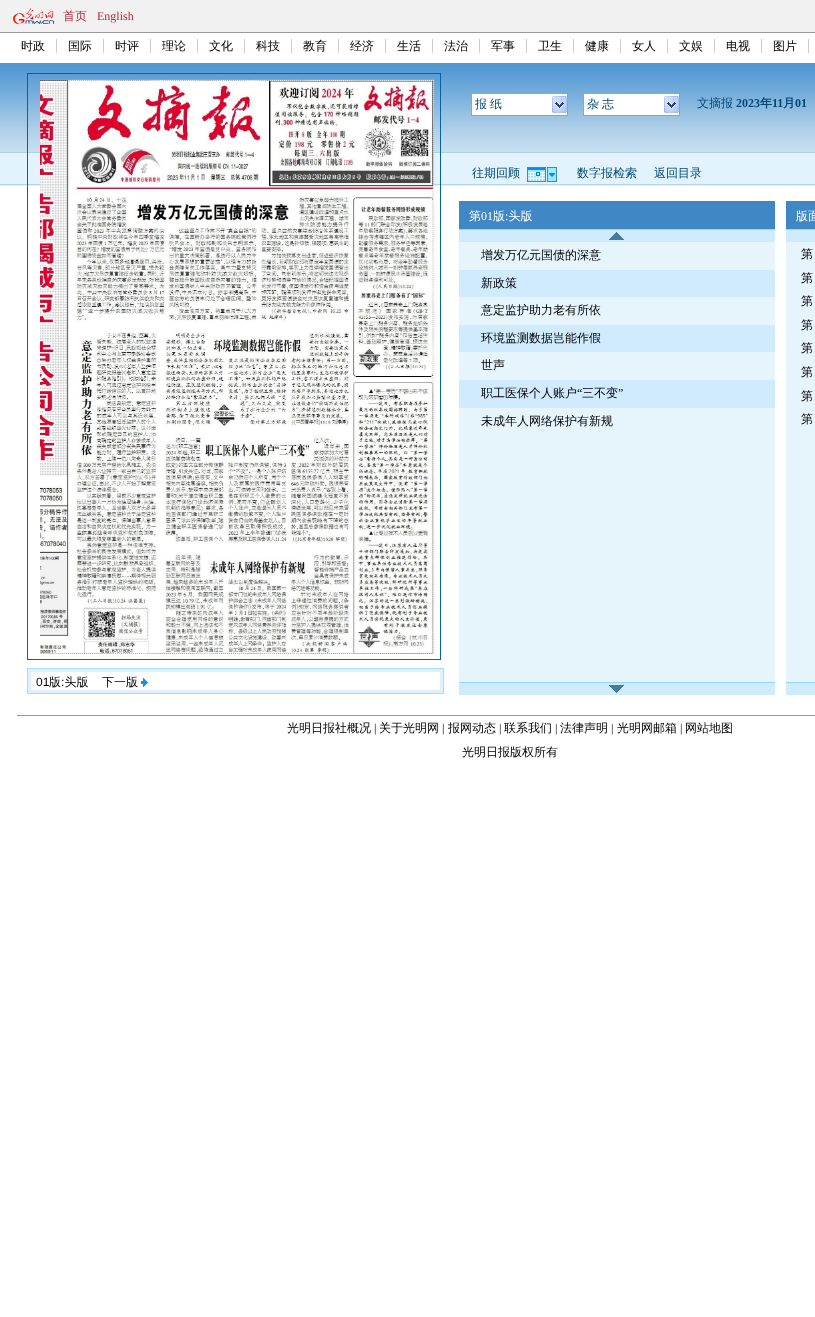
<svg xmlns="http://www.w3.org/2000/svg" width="815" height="1317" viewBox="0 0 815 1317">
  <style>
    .t1 { font: 500 12px WenQuanYi Zen Hei; fill: #bb2737; }
    .t2 { font: 12px Liberation Serif; fill: #bb2737; }
    .t3 { font: 500 12px WenQuanYi Zen Hei; fill: #000; }
    .t4 { font: 500 12px WenQuanYi Zen Hei; fill: #004873; }
    .t5 { font: bold 12px Liberation Serif; fill: #004873; }
    .t6 { font: bold 12px WenQuanYi Zen Hei; fill: #004873; }
    .t7 { font: 500 12px WenQuanYi Zen Hei; fill: #fff; }
    .t8 { font: 12px Liberation Serif; fill: #fff; }
    .t9 { font: 12px Liberation Serif; fill: #000; }
    .t10 { font: 12px Liberation Sans; fill: #000; }
  </style>
  <rect width="100%" height="100%" fill="#fff"/>
  <rect x="0" y="0" width="815" height="32" fill="#f1f1f1"/>
  <rect x="0" y="32" width="815" height="1" fill="#999"/>
  <image x="12" y="7" width="43" height="18" href="images/1.png"/>
  <text x="63" y="20" class="t1">首页</text>
  <text x="97" y="20" class="t2">English</text>
  <rect x="56" y="39" width="1" height="14" fill="#ccc"/>
  <text x="21" y="50" class="t3">时政</text>
  <rect x="103" y="39" width="1" height="14" fill="#ccc"/>
  <text x="68" y="50" class="t3">国际</text>
  <rect x="150" y="39" width="1" height="14" fill="#ccc"/>
  <text x="115" y="50" class="t3">时评</text>
  <rect x="197" y="39" width="1" height="14" fill="#ccc"/>
  <text x="162" y="50" class="t3">理论</text>
  <rect x="244" y="39" width="1" height="14" fill="#ccc"/>
  <text x="209" y="50" class="t3">文化</text>
  <rect x="291" y="39" width="1" height="14" fill="#ccc"/>
  <text x="256" y="50" class="t3">科技</text>
  <rect x="338" y="39" width="1" height="14" fill="#ccc"/>
  <text x="303" y="50" class="t3">教育</text>
  <rect x="385" y="39" width="1" height="14" fill="#ccc"/>
  <text x="350" y="50" class="t3">经济</text>
  <rect x="432" y="39" width="1" height="14" fill="#ccc"/>
  <text x="397" y="50" class="t3">生活</text>
  <rect x="479" y="39" width="1" height="14" fill="#ccc"/>
  <text x="444" y="50" class="t3">法治</text>
  <rect x="526" y="39" width="1" height="14" fill="#ccc"/>
  <text x="491" y="50" class="t3">军事</text>
  <rect x="573" y="39" width="1" height="14" fill="#ccc"/>
  <text x="538" y="50" class="t3">卫生</text>
  <rect x="620" y="39" width="1" height="14" fill="#ccc"/>
  <text x="585" y="50" class="t3">健康</text>
  <rect x="667" y="39" width="1" height="14" fill="#ccc"/>
  <text x="632" y="50" class="t3">女人</text>
  <rect x="714" y="39" width="1" height="14" fill="#ccc"/>
  <text x="679" y="50" class="t3">文娱</text>
  <rect x="761" y="39" width="1" height="14" fill="#ccc"/>
  <text x="726" y="50" class="t3">电视</text>
  <rect x="808" y="39" width="1" height="14" fill="#ccc"/>
  <text x="773" y="50" class="t3">图片</text>
  <image x="0" y="63" width="815" height="89" href="images/2.png"/>
  <rect x="0" y="152" width="815" height="1" fill="#acd0ea"/>
  <rect x="471.5" y="93.5" width="96" height="22" fill="#fff" stroke="#66b1eb"/>
  <text x="475" y="108" class="t4">报</text>
  <text x="490" y="108" class="t4">纸</text>
  <image x="552" y="96" width="15" height="17" href="images/3.png"/>
  <rect x="583.5" y="93.5" width="96" height="22" fill="#fff" stroke="#66b1eb"/>
  <text x="587" y="108" class="t4">杂</text>
  <text x="602" y="108" class="t4">志</text>
  <image x="664" y="96" width="15" height="17" href="images/3.png"/>
  <text x="697" y="107" class="t4">文摘报</text>
  <text x="736" y="107" class="t5">2023</text>
  <text x="760" y="107" class="t6">年</text>
  <text x="772" y="107" class="t5">11</text>
  <text x="783" y="107" class="t6">月</text>
  <text x="795" y="107" class="t5">01</text>
  <image x="0" y="153" width="815" height="33" href="images/9.png"/>
  <text x="472" y="177" class="t4">往期回顾</text>
  <image x="527" y="167" width="30" height="15" href="images/4.png"/>
  <text x="577" y="177" class="t4">数字报检索</text>
  <text x="654" y="177" class="t4">返回目录</text>
  <rect x="459" y="201" width="316" height="28" fill="#4087c5"/>
  <text x="469" y="220" class="t7">第</text>
  <text x="481" y="220" class="t8">01</text>
  <text x="493" y="220" class="t7">版 头版</text>
  <text x="505" y="220" class="t8">:</text>
  <rect x="459" y="230" width="316" height="12" fill="#d0ebfe"/>
  <rect x="459" y="229" width="316" height="1" fill="#94d5ff"/>
  <image x="609" y="232" width="15" height="8" href="images/5.png"/>
  <rect x="459" y="242" width="316" height="440" fill="#e6f5fc"/>
  <text x="481" y="259" class="t3">增发万亿元国债的深意</text>
  <rect x="459" y="270" width="316" height="27" fill="#d0ebfe"/>
  <text x="481" y="287" class="t3">新政策</text>
  <text x="481" y="314" class="t3">意定监护助力老有所依</text>
  <rect x="459" y="325" width="316" height="27" fill="#d0ebfe"/>
  <text x="481" y="342" class="t3">环境监测数据岂能作假</text>
  <text x="481" y="369" class="t3">世声</text>
  <rect x="459" y="380" width="316" height="28" fill="#d0ebfe"/>
  <text x="481" y="397" class="t3">职工医保个人账户</text>
  <text x="577" y="397" class="t9">“</text>
  <text x="582" y="397" class="t3">三不变</text>
  <text x="618" y="397" class="t9">”</text>
  <text x="481" y="425" class="t3">未成年人网络保护有新规</text>
  <rect x="459" y="683" width="316" height="12" fill="#d0ebfe"/>
  <rect x="459" y="682" width="316" height="1" fill="#94d5ff"/>
  <image x="609" y="685" width="15" height="8" href="images/6.png"/>
  <rect x="786" y="201" width="29" height="28" fill="#4087c5"/>
  <text x="796" y="220" class="t7">版面</text>
  <rect x="786" y="230" width="29" height="12" fill="#d0ebfe"/>
  <rect x="786" y="229" width="29" height="1" fill="#94d5ff"/>
  <rect x="786" y="242" width="29" height="440" fill="#e6f5fc"/>
  <text x="801" y="258" class="t3">第</text>
  <text x="801" y="282" class="t3">第</text>
  <text x="801" y="305" class="t3">第</text>
  <text x="801" y="329" class="t3">第</text>
  <text x="801" y="352" class="t3">第</text>
  <text x="801" y="376" class="t3">第</text>
  <text x="801" y="400" class="t3">第</text>
  <text x="801" y="423" class="t3">第</text>
  <rect x="786" y="683" width="29" height="12" fill="#d0ebfe"/>
  <rect x="786" y="682" width="29" height="1" fill="#94d5ff"/>
  <rect x="27.5" y="73.5" width="413" height="586" fill="none" stroke="#0065a7"/>
  <image x="40" y="79" width="394" height="575" href="images/7.png"/>
  <rect x="27.5" y="668.5" width="416" height="25" fill="none" stroke="#aadbf9"/>
  <rect x="29.5" y="670.5" width="412" height="21" fill="none" stroke="#def0fe" stroke-width="3"/>
  <text x="36" y="686" class="t10">01</text>
  <text x="49" y="686" class="t3">版 头版</text>
  <text x="102" y="686" class="t3">下一版</text>
  <image x="141" y="678" width="7" height="9" href="images/8.png"/>
  <text x="61" y="686" class="t10">:</text>
  <rect x="17" y="715" width="798" height="1" fill="#999"/>
  <text x="287" y="732" class="t3">光明日报社概况</text>
  <text x="374" y="732" class="t9">|</text>
  <text x="379" y="732" class="t3">关于光明网</text>
  <text x="442" y="732" class="t9">|</text>
  <text x="448" y="732" class="t3">报网动态</text>
  <text x="499" y="732" class="t9">|</text>
  <text x="504" y="732" class="t3">联系我们</text>
  <text x="555" y="732" class="t9">|</text>
  <text x="560" y="732" class="t3">法律声明</text>
  <text x="611" y="732" class="t9">|</text>
  <text x="617" y="732" class="t3">光明网邮箱</text>
  <text x="680" y="732" class="t9">|</text>
  <text x="685" y="732" class="t3">网站地图</text>
  <text x="462" y="756" class="t3">光明日报版权所有</text>
</svg>
